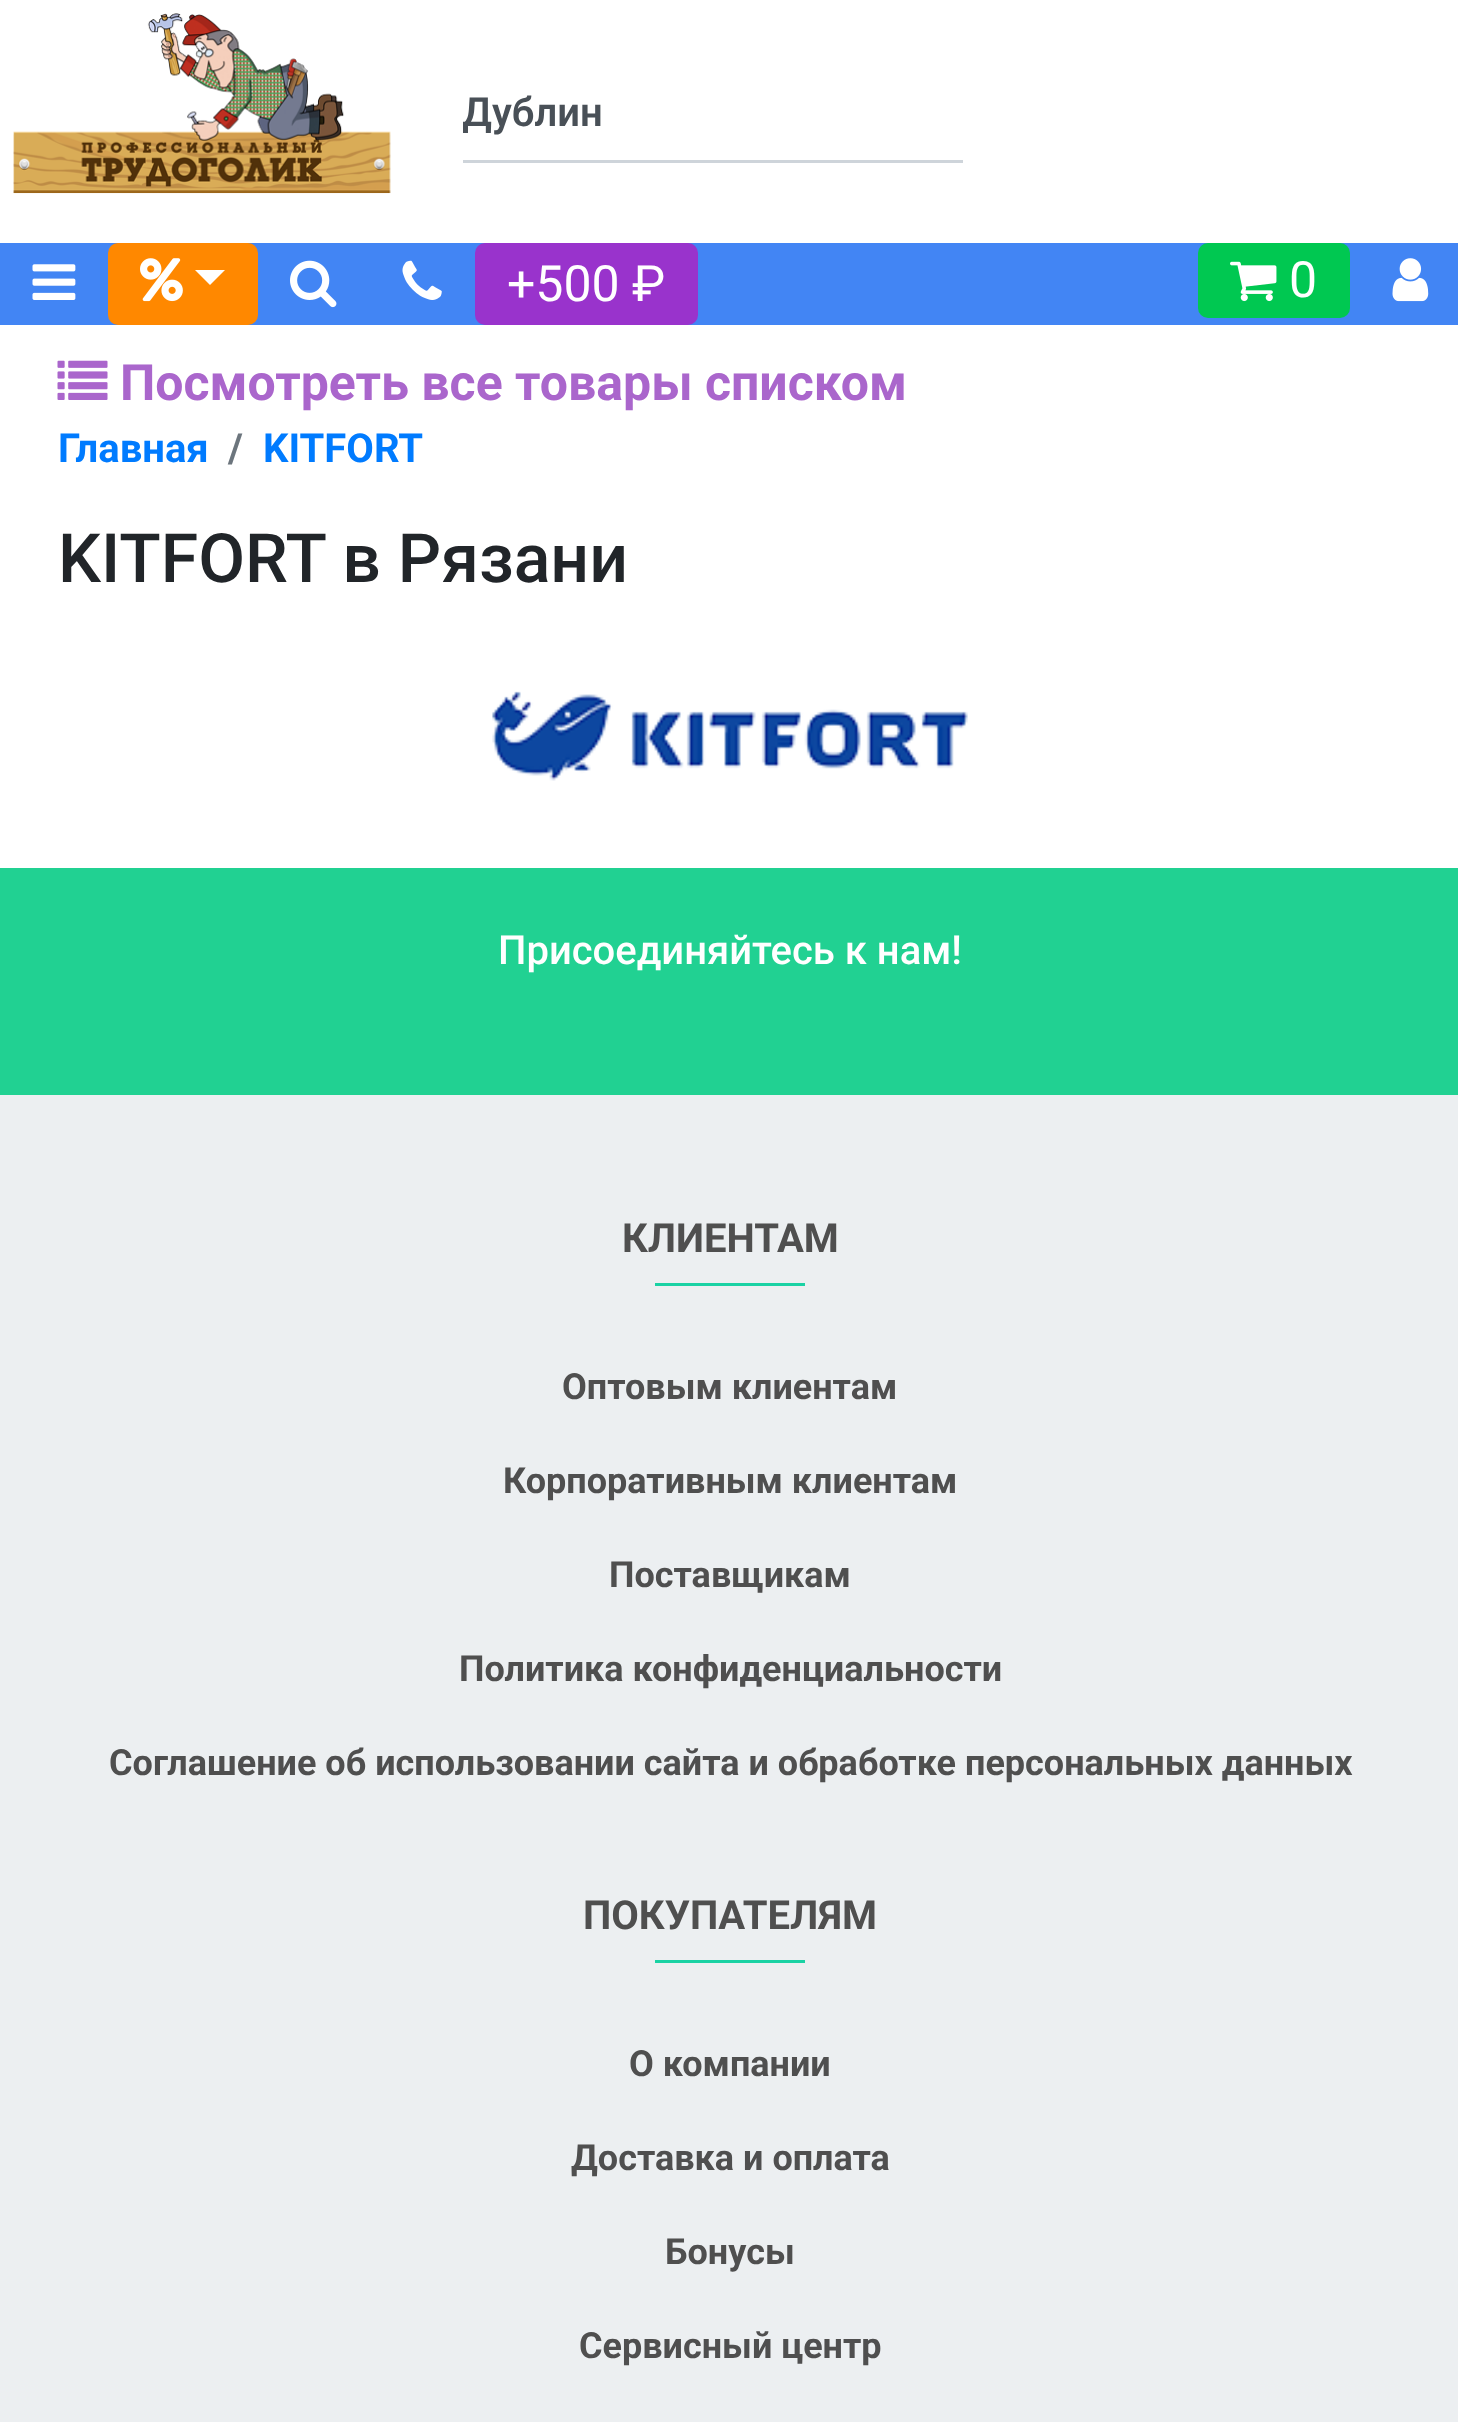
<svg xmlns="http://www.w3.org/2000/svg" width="1458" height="2422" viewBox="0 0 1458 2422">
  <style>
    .t1 { font: 600 40px Roboto; fill: #495057; }
    .t2 { font: 50px Roboto; fill: #fff; }
    .t3 { font: bold 50px Roboto; fill: #a6c; }
    .t4 { font: bold 40px Roboto; fill: #007bff; }
    .t5 { font: bold 40px Roboto; fill: #6c757d; }
    .t6 { font: 500 68px Roboto; fill: #212529; }
    .t7 { font: 500 40px Roboto; fill: #fff; }
    .t8 { font: bold 40px Roboto; fill: #4f4f4f; }
    .t9 { font: bold 36px Roboto; fill: #4f4f4f; }
  </style>
  <defs>
    <clipPath id="clip1"><path d="M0 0H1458V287H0ZM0 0H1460V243H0Z" clip-rule="evenodd"/></clipPath>
    <clipPath id="clip2"><path d="M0 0H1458V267H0ZM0 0H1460V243H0Z" clip-rule="evenodd"/></clipPath>
    <clipPath id="clip3"><rect x="463" y="60" width="500" height="123" rx="5"/></clipPath>
  </defs>
  <rect width="100%" height="100%" fill="#fff"/>
  <g clip-path="url(#clip1)">
    <rect x="0" y="5" width="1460" height="243" fill="#0000001f" filter="blur(12.5px)"/>
  </g>
  <g clip-path="url(#clip2)">
    <rect x="0" y="5" width="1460" height="243" fill="#00000029" filter="blur(6px)"/>
  </g>
  <image x="13" y="13" width="378" height="181" href="images/1.png"/>
  <rect x="463" y="160" width="500" height="3" fill="#ced4da"/>
  <g clip-path="url(#clip3)">
    <text x="462" y="126" class="t1">Дублин</text>
  </g>
  <rect x="0" y="243" width="1458" height="82" fill="#4285f4"/>
  <image x="32" y="264" width="44" height="36" href="images/2.png"/>
  <rect x="108" y="243" width="150" height="82" rx="10" fill="#f80"/>
  <image x="140" y="258" width="43" height="44" href="images/3.png"/>
  <path d="M195 270H225L210 285Z" fill="#fff"/>
  <image x="290" y="260" width="47" height="48" href="images/4.png"/>
  <image x="402" y="260" width="40" height="40" href="images/5.png"/>
  <rect x="475" y="243" width="223" height="82" rx="10" fill="#93c"/>
  <text x="507" y="301" class="t2">+500 ₽</text>
  <rect x="1198" y="243" width="152" height="75" rx="10" fill="#00c851"/>
  <image x="1230" y="261" width="47" height="41" href="images/6.png"/>
  <text x="1289" y="297" class="t2">0</text>
  <image x="1392" y="258" width="37" height="44" href="images/7.png"/>
  <image x="57" y="360" width="51" height="40" href="images/8.png"/>
  <text x="120" y="400" class="t3">Посмотреть все товары списком</text>
  <text x="58" y="462" class="t4">Главная</text>
  <text x="228" y="462" class="t5">/</text>
  <text x="263" y="462" class="t4">KITFORT</text>
  <text x="58" y="582" class="t6">KITFORT в Рязани</text>
  <image x="492" y="691" width="476" height="90" href="images/9.png"/>
  <rect x="0" y="1095" width="1458" height="1327" fill="#eceff1"/>
  <rect x="0" y="868" width="1458" height="227" fill="#21d192"/>
  <text x="498" y="964" class="t7">Присоединяйтесь к нам!</text>
  <text x="622" y="1252" class="t8">КЛИЕНТАМ</text>
  <rect x="655" y="1283" width="150" height="3" fill="#1ad2a4"/>
  <text x="562" y="1399" class="t9">Оптовым клиентам</text>
  <text x="503" y="1493" class="t9">Корпоративным клиентам</text>
  <text x="609" y="1587" class="t9">Поставщикам</text>
  <text x="459" y="1681" class="t9">Политика конфиденциальности</text>
  <text x="109" y="1775" class="t9">Соглашение об использовании сайта и обработке персональных данных</text>
  <text x="583" y="1929" class="t8">ПОКУПАТЕЛЯМ</text>
  <rect x="655" y="1960" width="150" height="3" fill="#1ad2a4"/>
  <text x="629" y="2076" class="t9">О компании</text>
  <text x="571" y="2170" class="t9">Доставка и оплата</text>
  <text x="665" y="2264" class="t9">Бонусы</text>
  <text x="579" y="2358" class="t9">Сервисный центр</text>
</svg>
